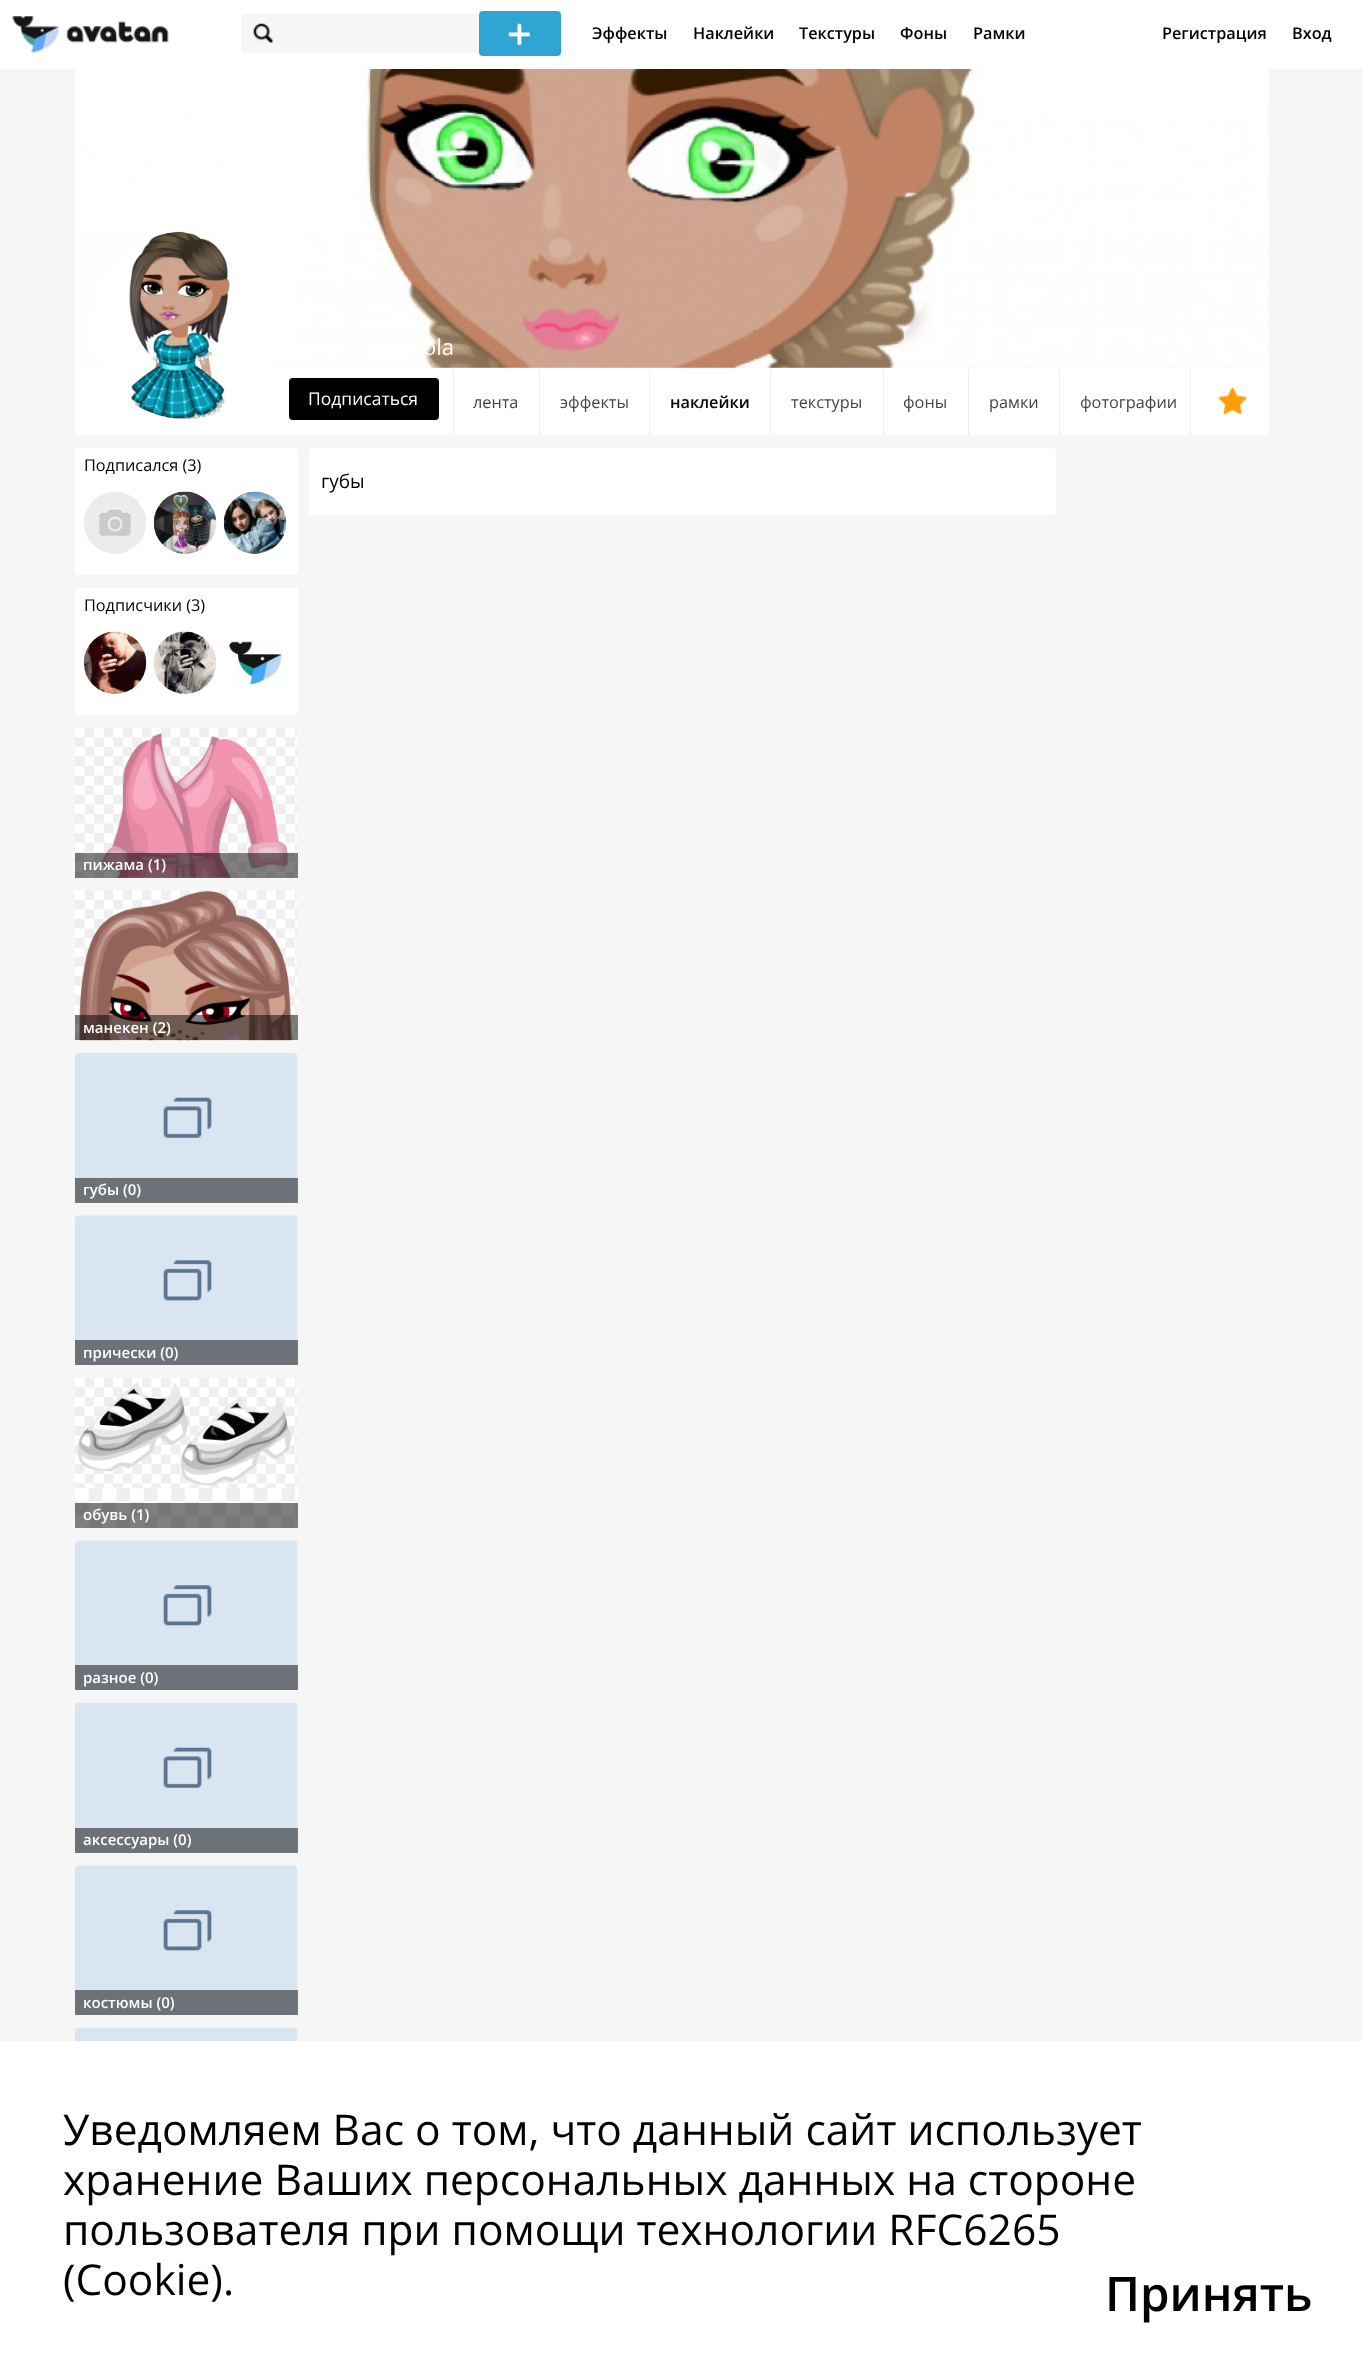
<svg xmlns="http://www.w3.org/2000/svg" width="1362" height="2366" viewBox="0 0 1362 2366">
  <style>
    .t1 { font: 600 16.25px Open Sans; fill: #000; }
    .t2 { font: 22px Open Sans; fill: #fff; }
    .t3 { font: 17.5px Open Sans; fill: #fff; }
    .t4 { font: 16.25px Open Sans; fill: #444; }
    .t5 { font: 16.25px Open Sans; fill: #000; }
    .t6 { font: 600 15px Open Sans; fill: #fff; }
    .t7 { font: 19px Open Sans; fill: #000; }
    .t8 { font: 42.5px Open Sans; fill: #000; }
    .t9 { font: 600 47.5px Open Sans; fill: #000; }
  </style>
  <rect width="100%" height="100%" fill="#f6f6f6"/>
  <rect x="75" y="69" width="1194" height="299" fill="#ececec"/>
  <image x="75" y="69" width="1194" height="299" href="images/4.png"/>
  <rect x="0" y="0" width="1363" height="69" fill="#0000004d" filter="blur(0.5px)"/>
  <rect x="0" y="0" width="1362" height="69" fill="#fff"/>
  <image x="12" y="16" width="157" height="37" href="images/1.png"/>
  <rect x="241" y="14" width="290" height="39" rx="4" fill="#f6f6f6"/>
  <image x="253" y="23" width="20" height="20" href="images/2.png"/>
  <rect x="479" y="11" width="82" height="45" rx="4" fill="#30a5d4"/>
  <image x="508" y="23" width="22" height="22" href="images/3.png"/>
  <text x="592" y="39" class="t1">Эффекты</text>
  <text x="693" y="39" class="t1">Наклейки</text>
  <text x="799" y="39" class="t1">Текстуры</text>
  <text x="900" y="39" class="t1">Фоны</text>
  <text x="973" y="39" class="t1">Рамки</text>
  <text x="1162" y="39" class="t1">Регистрация</text>
  <text x="1292" y="39" class="t1">Вход</text>
  <path d="M75 368H1269V431C1269 433 1267 435 1265 435H79C77 435 75 433 75 431Z" fill="#fff"/>
  <circle cx="185" cy="325" r="94" fill="#fff"/>
  <image x="129" y="231" width="102" height="188" href="images/5.png"/>
  <text x="423" y="355" class="t2">ola</text>
  <rect x="289" y="378" width="150" height="42" rx="4" fill="#000"/>
  <text x="308" y="405" class="t3">Подписаться</text>
  <rect x="453" y="369" width="1" height="66" fill="#ededed"/>
  <text x="473" y="408" class="t4">лента</text>
  <rect x="539" y="369" width="1" height="66" fill="#ededed"/>
  <text x="560" y="408" class="t4">эффекты</text>
  <rect x="649" y="369" width="1" height="66" fill="#ededed"/>
  <text x="670" y="408" class="t1">наклейки</text>
  <rect x="770" y="369" width="1" height="66" fill="#ededed"/>
  <text x="791" y="408" class="t4">текстуры</text>
  <rect x="883" y="369" width="1" height="66" fill="#ededed"/>
  <text x="903" y="408" class="t4">фоны</text>
  <rect x="968" y="369" width="1" height="66" fill="#ededed"/>
  <text x="989" y="408" class="t4">рамки</text>
  <rect x="1059" y="369" width="1" height="66" fill="#ededed"/>
  <text x="1080" y="408" class="t4">фотографии</text>
  <rect x="1190" y="368" width="1" height="67" fill="#ededed"/>
  <image x="1218" y="387" width="29" height="28" href="images/6.png"/>
  <rect x="75" y="448" width="223" height="127" rx="4" fill="#fff"/>
  <text x="84" y="471" class="t5">Подписался (3)</text>
  <image x="84" y="491" width="62" height="63" href="images/7.png"/>
  <image x="153" y="491" width="63" height="63" href="images/8.png"/>
  <image x="223" y="491" width="64" height="63" href="images/9.png"/>
  <rect x="75" y="588" width="223" height="127" rx="4" fill="#fff"/>
  <text x="84" y="611" class="t5">Подписчики (3)</text>
  <image x="83" y="631" width="64" height="63" href="images/10.png"/>
  <image x="154" y="631" width="62" height="63" href="images/11.png"/>
  <image x="228" y="639" width="57" height="47" href="images/12.png"/>
  <image x="75" y="728" width="223" height="150" href="images/13.png"/>
  <image x="75" y="728" width="222" height="150" href="images/14.png"/>
  <rect x="75" y="853" width="223" height="25" fill="#00000080"/>
  <text x="83" y="870" class="t6">пижама (1)</text>
  <image x="297" y="891" width="1" height="149" href="images/15.png"/>
  <image x="75" y="890" width="222" height="151" href="images/16.png"/>
  <rect x="75" y="1015" width="223" height="25" fill="#00000080"/>
  <text x="83" y="1033" class="t6">манекен (2)</text>
  <image x="75" y="1053" width="223" height="150" href="images/17.png"/>
  <rect x="75" y="1178" width="223" height="25" fill="#00000080"/>
  <text x="83" y="1195" class="t6">губы (0)</text>
  <image x="75" y="1215" width="223" height="150" href="images/18.png"/>
  <rect x="75" y="1340" width="223" height="25" fill="#00000080"/>
  <text x="83" y="1358" class="t6">прически (0)</text>
  <image x="75" y="1378" width="223" height="150" href="images/13.png"/>
  <image x="75" y="1378" width="222" height="110" href="images/19.png"/>
  <rect x="75" y="1503" width="223" height="25" fill="#00000080"/>
  <text x="83" y="1520" class="t6">обувь (1)</text>
  <image x="75" y="1540" width="223" height="150" href="images/18.png"/>
  <rect x="75" y="1665" width="223" height="25" fill="#00000080"/>
  <text x="83" y="1683" class="t6">разное (0)</text>
  <image x="75" y="1703" width="223" height="150" href="images/20.png"/>
  <rect x="75" y="1828" width="223" height="25" fill="#00000080"/>
  <text x="83" y="1845" class="t6">аксессуары (0)</text>
  <image x="75" y="1865" width="223" height="150" href="images/18.png"/>
  <rect x="75" y="1990" width="223" height="25" fill="#00000080"/>
  <text x="83" y="2008" class="t6">костюмы (0)</text>
  <image x="75" y="2028" width="223" height="13" href="images/21.png"/>
  <rect x="309" y="448" width="747" height="67" rx="4" fill="#fff"/>
  <text x="321" y="488" class="t7">губы</text>
  <rect x="0" y="2041" width="1362" height="325" fill="#fff"/>
  <text x="63" y="2145" class="t8">Уведомляем Вас о том, что данный сайт использует</text>
  <text x="63" y="2195" class="t8">хранение Ваших персональных данных на стороне</text>
  <text x="63" y="2245" class="t8">пользователя при помощи технологии RFC6265</text>
  <text x="63" y="2295" class="t8">(Cookie).</text>
  <text x="1105" y="2311" class="t9">Принять</text>
</svg>
